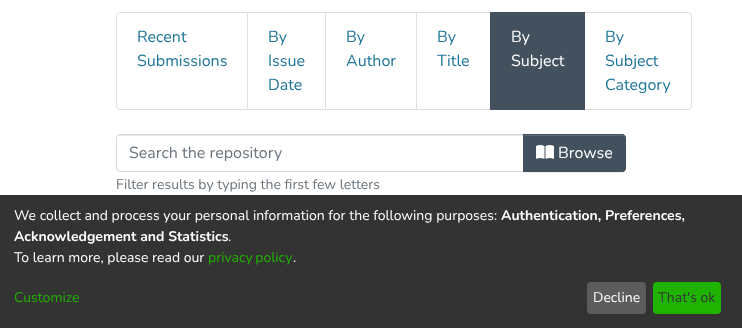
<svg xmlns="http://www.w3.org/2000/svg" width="742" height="328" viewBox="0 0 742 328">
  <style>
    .t1 { font: 16px Nunito; fill: #207698; }
    .t2 { font: 16px Nunito; fill: #fff; }
    .t3 { font: 16px Nunito; fill: #6c757d; }
    .t4 { font: 14px Nunito; fill: #6c757d; }
    .t5 { font: 14px Nunito; fill: #fff; }
    .t6 { font: bold 14px Nunito; fill: #fff; }
    .t7 { font: 14px Nunito; fill: #1fb300; }
    .t8 { font: 14px Nunito; fill: #333; }
  </style>
  <rect width="100%" height="100%" fill="#fff"/>
  <path d="M120 12.5H247.5V109.5H120C118 109.5 116.5 108 116.5 106V16C116.5 14 118 12.5 120 12.5Z" fill="none" stroke="#dfdfdf"/>
  <text x="137" y="42" class="t1">Recent</text>
  <text x="137" y="66" class="t1">Submissions</text>
  <path d="M248 12H326L325 13H248Z" fill="#dfdfdf"/>
  <path d="M326 12V110L325 109V13Z" fill="#0000001f"/>
  <path d="M326 110H248V109H325Z" fill="#0000001f"/>
  <text x="268" y="42" class="t1">By</text>
  <text x="268" y="66" class="t1">Issue</text>
  <text x="268" y="90" class="t1">Date</text>
  <path d="M326 12H417L416 13H326Z" fill="#dfdfdf"/>
  <path d="M417 12V110L416 109V13Z" fill="#0000001f"/>
  <path d="M417 110H326V109H416Z" fill="#0000001f"/>
  <text x="346" y="42" class="t1">By</text>
  <text x="346" y="66" class="t1">Author</text>
  <path d="M417 12H491L490 13H417Z" fill="#dfdfdf"/>
  <path d="M491 110H417V109H490Z" fill="#0000001f"/>
  <text x="437" y="42" class="t1">By</text>
  <text x="437" y="66" class="t1">Title</text>
  <rect x="490" y="12" width="95" height="98" fill="#43515f"/>
  <text x="511" y="42" class="t2">By</text>
  <text x="511" y="66" class="t2">Subject</text>
  <path d="M585 12H688C690 12 692 14 692 16V106C692 108 690 110 688 110H585ZM585 13H688C690 13 691 14 691 16V106C691 108 690 109 688 109H585Z" fill="#dfdfdf" fill-rule="evenodd"/>
  <text x="605" y="42" class="t1">By</text>
  <text x="605" y="66" class="t1">Subject</text>
  <text x="605" y="90" class="t1">Category</text>
  <path d="M120 136H523V135H120C118 135 117 137 117 139C117 137 118 136 120 136Z" fill="#ececec"/>
  <path d="M120 134.5H523.5V171.5H120C118 171.5 116.5 170 116.5 168V138C116.5 136 118 134.5 120 134.5Z" fill="none" stroke="#ced4da"/>
  <text x="129" y="158" class="t3">Search the repository</text>
  <rect x="523" y="135" width="103" height="38" rx="4" fill="#00000012" filter="blur(0.5px)"/>
  <path d="M523 134H622C624 134 626 136 626 138V168C626 170 624 172 622 172H523Z" fill="#43515f"/>
  <path d="M524 136H622C624 136 625 137 625 139V138C625 136 624 135 622 135H524Z" fill="#5f6b77"/>
  <path d="M523.5 134.5H622C624 134.5 625.5 136 625.5 138V168C625.5 170 624 171.5 622 171.5H523.5Z" fill="none" stroke="#43515f"/>
  <image x="536" y="145" width="18" height="14" href="images/1.png"/>
  <text x="558" y="158" class="t2">Browse</text>
  <text x="116" y="189" class="t4">Filter results by typing the first few letters</text>
  <rect x="0" y="195" width="742" height="133" fill="#333"/>
  <text x="14" y="220" class="t5">We collect and process your personal information for the following purposes:</text>
  <text x="501" y="220" class="t6">Authentication, Preferences,</text>
  <text x="14" y="241" class="t6">Acknowledgement and Statistics</text>
  <text x="228" y="241" class="t5">.</text>
  <text x="14" y="262" class="t5">To learn more, please read our</text>
  <text x="208" y="262" word-spacing="-1" class="t7">privacy policy</text>
  <text x="293" y="262" class="t5">.</text>
  <text x="14" y="302" class="t7">Customize</text>
  <rect x="587" y="282" width="59" height="32" rx="4" fill="#5c5c5c"/>
  <text x="593" y="302" class="t5">Decline</text>
  <rect x="653" y="282" width="68" height="32" rx="4" fill="#1fb300"/>
  <text x="658" y="302" class="t8">That's ok</text>
</svg>
